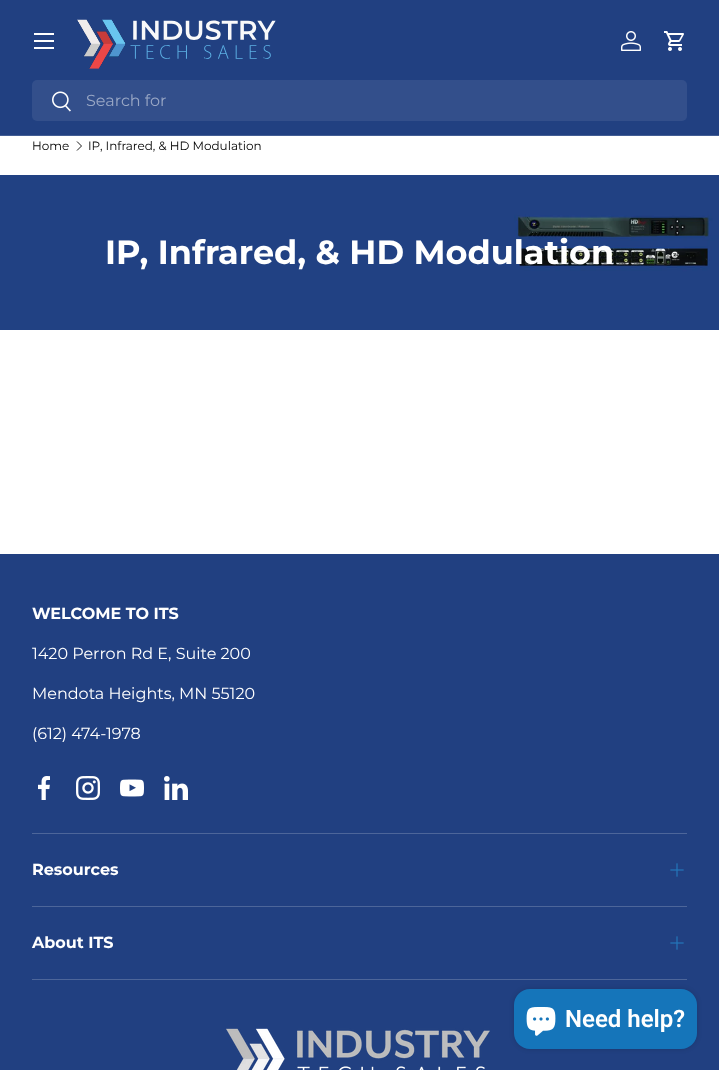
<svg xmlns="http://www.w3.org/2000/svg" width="719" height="1070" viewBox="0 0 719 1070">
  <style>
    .t1 { font: 16px Montserrat; fill: #99a7c5; }
    .t2 { font: 12px Montserrat; fill: #000; }
    .t3 { font: bold 33.5px Montserrat; fill: #fff; }
    .t4 { font: bold 16px Montserrat; fill: #fff; }
    .t5 { font: 16px Montserrat; fill: #fff; }
    .t6 { font: 600 24px Roboto; fill: #fff; }
  </style>
  <rect width="100%" height="100%" fill="#fff"/>
  <rect x="0" y="0" width="719" height="135" fill="#214081"/>
  <rect x="0" y="135" width="719" height="1" fill="#425d94"/>
  <rect x="34" y="33" width="20" height="2" fill="#fff"/>
  <rect x="34" y="47" width="20" height="2" fill="#fff"/>
  <rect x="34" y="40" width="20" height="2" fill="#fff"/>
  <image x="77" y="19" width="199" height="50" href="images/1.png"/>
  <image x="621" y="31" width="20" height="20" href="images/2.png"/>
  <image x="664" y="31" width="20" height="20" href="images/3.png"/>
  <rect x="32" y="80" width="655" height="41" rx="5" fill="#334f8b"/>
  <image x="52" y="91" width="19" height="21" href="images/4.png"/>
  <text x="86" y="106" class="t1">Search for</text>
  <text x="32" y="150" class="t2">Home</text>
  <path d="M77 141.5L81.5 146L77 150.5" fill="none" stroke="#000" stroke-width="0.9"/>
  <text x="88" y="150" class="t2">IP, Infrared, &amp; HD Modulation</text>
  <image x="0" y="175" width="719" height="155" href="images/5.png"/>
  <text x="105" y="264" class="t3">IP, Infrared, &amp; HD Modulation</text>
  <rect x="0" y="554" width="719" height="516" fill="#214081"/>
  <text x="32" y="619" class="t4">WELCOME TO ITS</text>
  <text x="32" y="659" class="t5">1420 Perron Rd E, Suite 200</text>
  <text x="32" y="699" class="t5">Mendota Heights, MN 55120</text>
  <text x="32" y="739" class="t5">(612) 474-1978</text>
  <image x="38" y="776" width="12" height="24" href="images/6.png"/>
  <image x="76" y="776" width="24" height="24" href="images/7.png"/>
  <image x="120" y="779" width="24" height="18" href="images/8.png"/>
  <image x="164" y="776" width="24" height="24" href="images/9.png"/>
  <rect x="32" y="833" width="655" height="1" fill="#4d669a"/>
  <rect x="32" y="906" width="655" height="1" fill="#4d669a"/>
  <text x="32" y="875" class="t4">Resources</text>
  <image x="670" y="863" width="14" height="14" href="images/10.png"/>
  <rect x="32" y="979" width="655" height="1" fill="#4d669a"/>
  <text x="32" y="948" class="t4">About ITS</text>
  <image x="670" y="936" width="14" height="14" href="images/10.png"/>
  <image x="226" y="1028" width="264" height="42" href="images/11.png"/>
  <rect x="514" y="989" width="183" height="60" rx="16" fill="#00000026" filter="blur(2.5px)"/>
  <rect x="514" y="989" width="183" height="60" rx="16" fill="#1575ba"/>
  <image x="526" y="1007" width="30" height="29" href="images/12.png"/>
  <text x="565" y="1027" class="t6">Need help?</text>
</svg>
